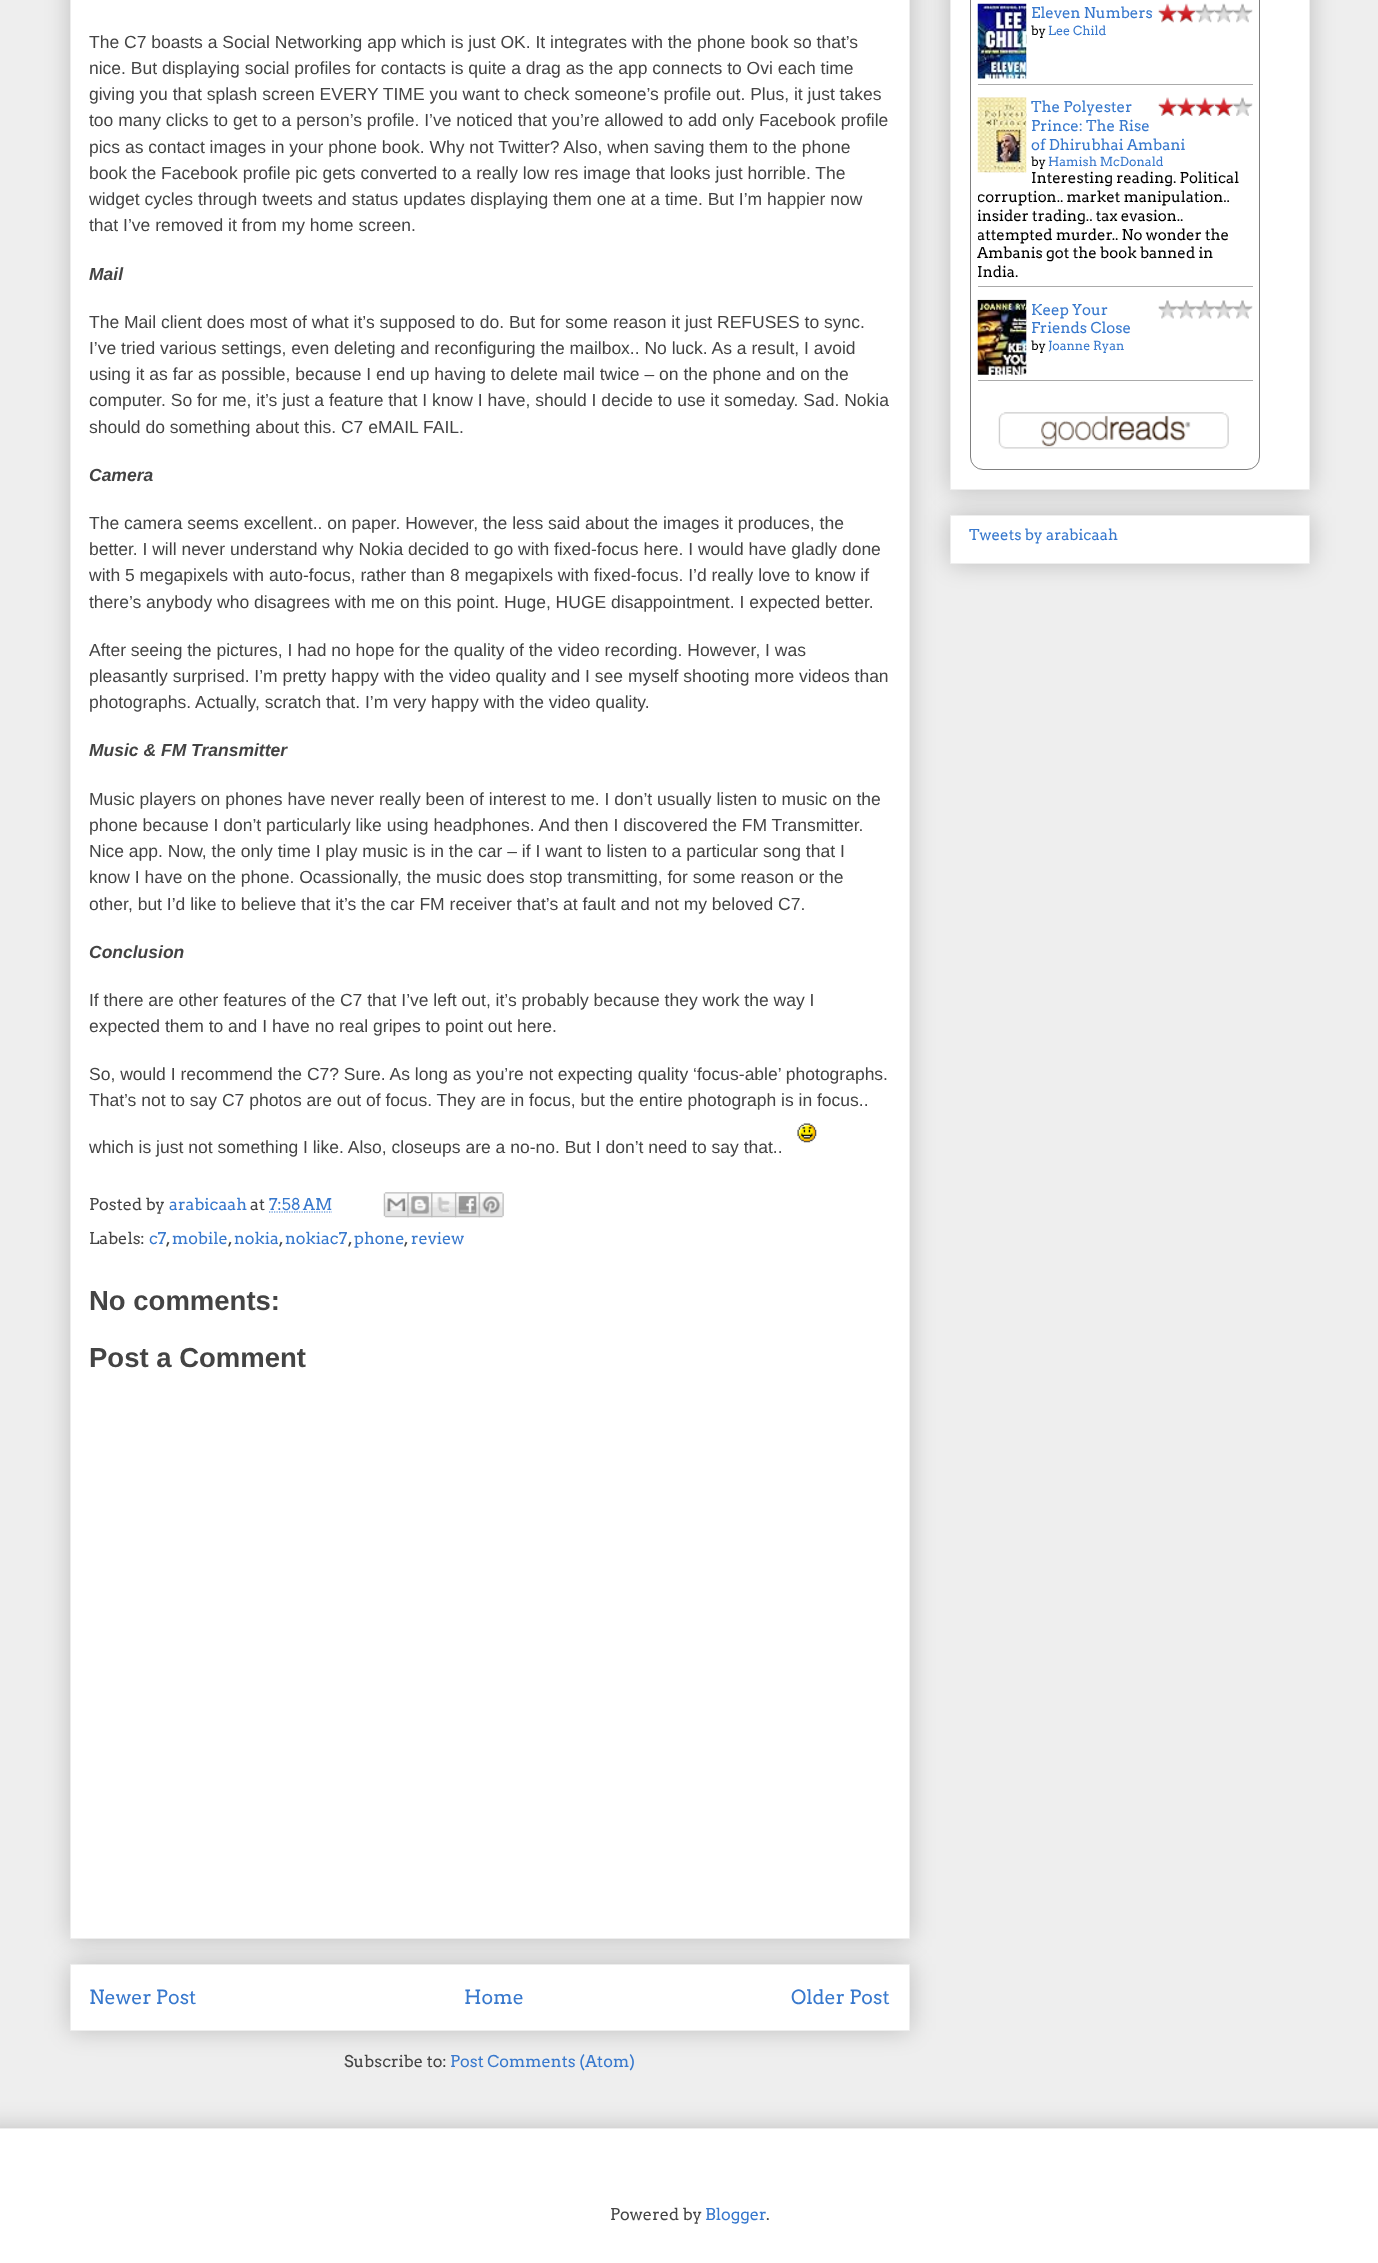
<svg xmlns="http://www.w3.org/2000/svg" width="1378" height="2263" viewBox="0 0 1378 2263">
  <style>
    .t1 { font: 17.5px Liberation Sans; fill: #444; }
    .t2 { font: italic bold 17.5px Liberation Sans; fill: #444; }
    .t3 { font: 16.25px Arvo; fill: #444; }
    .t4 { font: 16.25px Arvo; fill: #3778cd; }
    .t5 { font: bold 27.5px Liberation Sans; fill: #444; }
    .t6 { font: 19.5px Arvo; fill: #3778cd; }
    .t7 { font: 15px Arvo; fill: #3778cd; }
    .t8 { font: 12.5px Arvo; fill: #000; }
    .t9 { font: 12.5px Arvo; fill: #3778cd; }
    .t10 { font: 15px Arvo; fill: #000; }
  </style>
  <defs>
    <clipPath id="clip1"><rect x="978" y="98" width="275" height="188"/></clipPath>
  </defs>
  <rect width="100%" height="100%" fill="#eee"/>
  <rect x="70" y="1964" width="840" height="67" fill="#00000033" filter="blur(12.5px)"/>
  <rect x="70.5" y="1964.5" width="839" height="66" fill="#fff" stroke="#eee"/>
  <rect x="70" y="-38" width="840" height="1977" fill="#00000033" filter="blur(12.5px)"/>
  <rect x="70.5" y="-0.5" width="839" height="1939" fill="#fff" stroke="#eee"/>
  <text x="89" y="48" class="t1">The C7 boasts a Social Networking app which is just OK. It integrates with the phone book so that’s</text>
  <text x="89" y="74" class="t1">nice. But displaying social profiles for contacts is quite a drag as the app connects to Ovi each time</text>
  <text x="89" y="100" class="t1">giving you that splash screen EVERY TIME you want to check someone’s profile out. Plus, it just takes</text>
  <text x="89" y="126" class="t1">too many clicks to get to a person’s profile. I’ve noticed that you’re allowed to add only Facebook profile</text>
  <text x="89" y="153" class="t1">pics as contact images in your phone book. Why not Twitter? Also, when saving them to the phone</text>
  <text x="89" y="179" class="t1">book the Facebook profile pic gets converted to a really low res image that looks just horrible. The</text>
  <text x="89" y="205" class="t1">widget cycles through tweets and status updates displaying them one at a time. But I’m happier now</text>
  <text x="89" y="231" class="t1">that I’ve removed it from my home screen.</text>
  <text x="89" y="280" class="t2">Mail</text>
  <text x="89" y="328" class="t1">The Mail client does most of what it’s supposed to do. But for some reason it just REFUSES to sync.</text>
  <text x="89" y="354" class="t1">I’ve tried various settings, even deleting and reconfiguring the mailbox.. No luck. As a result, I avoid</text>
  <text x="89" y="380" class="t1">using it as far as possible, because I end up having to delete mail twice – on the phone and on the</text>
  <text x="89" y="406" class="t1">computer. So for me, it’s just a feature that I know I have, should I decide to use it someday. Sad. Nokia</text>
  <text x="89" y="433" class="t1">should do something about this. C7 eMAIL FAIL.</text>
  <text x="89" y="481" class="t2">Camera</text>
  <text x="89" y="529" class="t1">The camera seems excellent.. on paper. However, the less said about the images it produces, the</text>
  <text x="89" y="555" class="t1">better. I will never understand why Nokia decided to go with fixed-focus here. I would have gladly done</text>
  <text x="89" y="581" class="t1">with 5 megapixels with auto-focus, rather than 8 megapixels with fixed-focus. I’d really love to know if</text>
  <text x="89" y="608" class="t1">there’s anybody who disagrees with me on this point. Huge, HUGE disappointment. I expected better.</text>
  <text x="89" y="656" class="t1">After seeing the pictures, I had no hope for the quality of the video recording. However, I was</text>
  <text x="89" y="682" class="t1">pleasantly surprised. I’m pretty happy with the video quality and I see myself shooting more videos than</text>
  <text x="89" y="708" class="t1">photographs. Actually, scratch that. I’m very happy with the video quality.</text>
  <text x="89" y="756" class="t2">Music &amp; FM Transmitter</text>
  <text x="89" y="805" class="t1">Music players on phones have never really been of interest to me. I don’t usually listen to music on the</text>
  <text x="89" y="831" class="t1">phone because I don’t particularly like using headphones. And then I discovered the FM Transmitter.</text>
  <text x="89" y="857" class="t1">Nice app. Now, the only time I play music is in the car – if I want to listen to a particular song that I</text>
  <text x="89" y="883" class="t1">know I have on the phone. Ocassionally, the music does stop transmitting, for some reason or the</text>
  <text x="89" y="910" class="t1">other, but I’d like to believe that it’s the car FM receiver that’s at fault and not my beloved C7.</text>
  <text x="89" y="958" class="t2">Conclusion</text>
  <text x="89" y="1006" class="t1">If there are other features of the C7 that I’ve left out, it’s probably because they work the way I</text>
  <text x="89" y="1032" class="t1">expected them to and I have no real gripes to point out here.</text>
  <text x="89" y="1080" class="t1">So, would I recommend the C7? Sure. As long as you’re not expecting quality ‘focus-able’ photographs.</text>
  <text x="89" y="1106" class="t1">That’s not to say C7 photos are out of focus. They are in focus, but the entire photograph is in focus..</text>
  <image x="797" y="1123" width="20" height="20" href="images/1.png"/>
  <text x="89" y="1153" class="t1">which is just not something I like. Also, closeups are a no-no. But I don’t need to say that..</text>
  <text x="89" y="1210" class="t3">Posted by</text>
  <text x="169" y="1210" class="t4">arabicaah</text>
  <text x="250" y="1210" class="t3">at</text>
  <text x="269" y="1210" class="t4">7:58 AM</text>
  <path d="M269 1212H332" fill="none" stroke="#3778cd" stroke-width="1.2" stroke-dasharray="1.25 1.25"/>
  <image x="383" y="1192" width="26" height="26" href="images/2.png"/>
  <image x="407" y="1192" width="26" height="26" href="images/3.png"/>
  <image x="431" y="1192" width="26" height="26" href="images/4.png"/>
  <image x="455" y="1192" width="25" height="26" href="images/5.png"/>
  <image x="478" y="1192" width="26" height="26" href="images/6.png"/>
  <text x="89" y="1244" class="t3">Labels:</text>
  <text x="149" y="1244" class="t4">c7</text>
  <text x="166" y="1244" class="t3">,</text>
  <text x="172" y="1244" class="t4">mobile</text>
  <text x="228" y="1244" class="t3">,</text>
  <text x="234" y="1244" class="t4">nokia</text>
  <text x="279" y="1244" class="t3">,</text>
  <text x="285" y="1244" class="t4">nokiac7</text>
  <text x="348" y="1244" class="t3">,</text>
  <text x="354" y="1244" class="t4">phone</text>
  <text x="404" y="1244" class="t3">,</text>
  <text x="411" y="1244" class="t4">review</text>
  <text x="89" y="1310" class="t5">No comments:</text>
  <text x="89" y="1367" class="t5">Post a Comment</text>
  <text x="89" y="2004" class="t6">Newer Post</text>
  <text x="464" y="2004" class="t6">Home</text>
  <text x="791" y="2004" class="t6">Older Post</text>
  <text x="344" y="2067" class="t3">Subscribe to:</text>
  <text x="450" y="2067" class="t4">Post Comments (Atom)</text>
  <rect x="950" y="-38" width="360" height="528" fill="#00000033" filter="blur(12.5px)"/>
  <rect x="950.5" y="-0.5" width="359" height="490" fill="#fff" stroke="#eee"/>
  <rect x="970.5" y="-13.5" width="289" height="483" rx="12.5" fill="none" stroke="#808080"/>
  <rect x="978" y="84" width="275" height="1" fill="#aaa"/>
  <image x="977" y="3" width="50" height="76" href="images/7.png"/>
  <text x="1031" y="18" class="t7">Eleven Numbers</text>
  <image x="1158" y="3" width="20" height="20" href="images/8.png"/>
  <image x="1177" y="3" width="20" height="20" href="images/9.png"/>
  <image x="1196" y="3" width="19" height="20" href="images/10.png"/>
  <image x="1215" y="3" width="19" height="20" href="images/11.png"/>
  <image x="1233" y="3" width="20" height="20" href="images/12.png"/>
  <text x="1031" y="35" class="t8">by</text>
  <text x="1048" y="35" class="t9">Lee Child</text>
  <rect x="978" y="286" width="275" height="1" fill="#aaa"/>
  <image x="977" y="97" width="50" height="76" href="images/13.png"/>
  <text x="1031" y="112" class="t7">The Polyester</text>
  <text x="1031" y="131" class="t7">Prince: The Rise</text>
  <text x="1031" y="150" class="t7">of Dhirubhai Ambani</text>
  <image x="1158" y="97" width="20" height="19" href="images/14.png"/>
  <image x="1177" y="97" width="20" height="19" href="images/15.png"/>
  <image x="1196" y="97" width="19" height="19" href="images/16.png"/>
  <image x="1215" y="97" width="19" height="19" href="images/17.png"/>
  <image x="1233" y="97" width="20" height="19" href="images/18.png"/>
  <text x="1031" y="166" class="t8">by</text>
  <text x="1048" y="166" class="t9">Hamish McDonald</text>
  <text x="1031" y="183" class="t10">Interesting reading. Political</text>
  <g clip-path="url(#clip1)">
    <text x="977" y="202" class="t10">corruption.. market manipulation..</text>
    <text x="977" y="221" class="t10">insider trading.. tax evasion..</text>
    <text x="977" y="240" class="t10">attempted murder.. No wonder the</text>
  </g>
  <text x="977" y="258" class="t10">Ambanis got the book banned in</text>
  <text x="977" y="277" class="t10">India.</text>
  <rect x="978" y="380" width="275" height="1" fill="#aaa"/>
  <image x="977" y="299" width="50" height="76" href="images/19.png"/>
  <text x="1031" y="315" class="t7">Keep Your</text>
  <text x="1031" y="333" class="t7">Friends Close</text>
  <image x="1158" y="300" width="20" height="19" href="images/20.png"/>
  <image x="1177" y="300" width="20" height="19" href="images/21.png"/>
  <image x="1196" y="300" width="19" height="19" href="images/22.png"/>
  <image x="1215" y="300" width="19" height="19" href="images/23.png"/>
  <image x="1233" y="300" width="20" height="19" href="images/24.png"/>
  <text x="1031" y="350" class="t8">by</text>
  <text x="1048" y="350" class="t9">Joanne Ryan</text>
  <image x="998" y="412" width="231" height="37" href="images/25.png"/>
  <rect x="950" y="515" width="360" height="49" fill="#00000033" filter="blur(12.5px)"/>
  <rect x="950.5" y="515.5" width="359" height="48" fill="#fff" stroke="#eee"/>
  <text x="969" y="540" class="t7">Tweets by arabicaah</text>
  <rect x="-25" y="2128" width="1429" height="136" fill="#00000033" filter="blur(12.5px)"/>
  <rect x="0" y="2129" width="1378" height="134" fill="#fff"/>
  <rect x="0" y="2128" width="1378" height="1" fill="#eee"/>
  <text x="610" y="2220" class="t3">Powered by</text>
  <text x="705" y="2220" class="t4">Blogger</text>
  <text x="766" y="2220" class="t3">.</text>
</svg>
